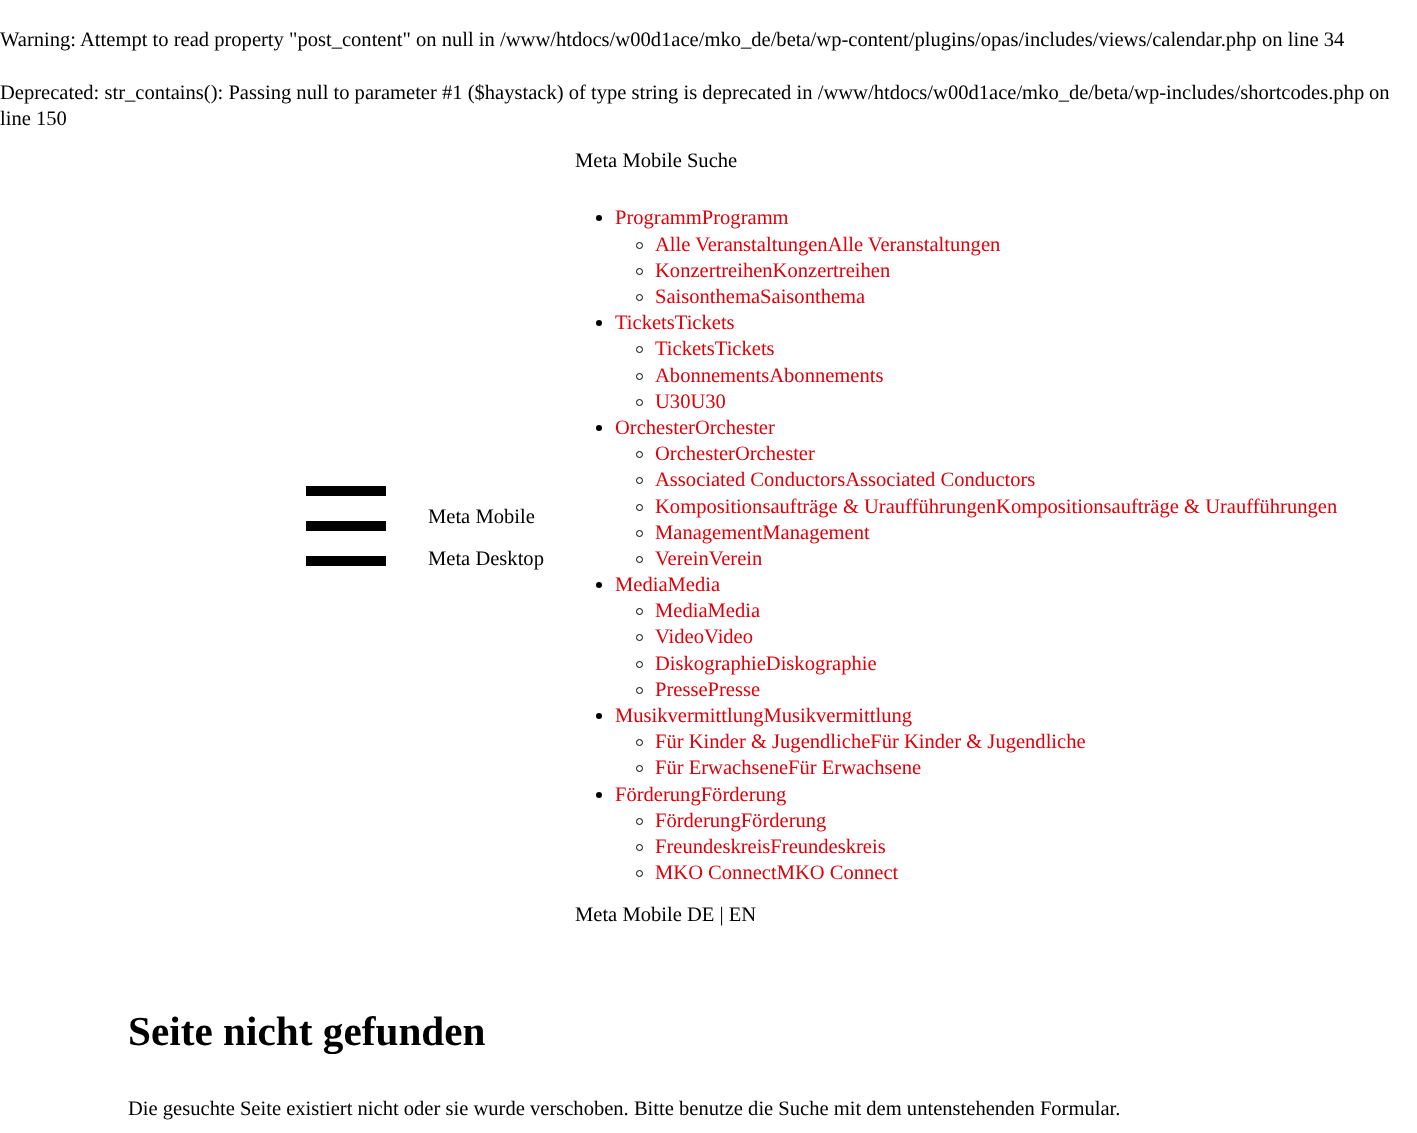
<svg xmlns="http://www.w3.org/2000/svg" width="1417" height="1133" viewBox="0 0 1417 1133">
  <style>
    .t1 { font: 20.57px Liberation Serif; fill: #000; }
    .t2 { font: 20.57px Liberation Serif; fill: #e1000a; }
    .t3 { font: bold 41.25px Liberation Serif; fill: #000; }
  </style>
  <rect width="100%" height="100%" fill="#fff"/>
  <text x="0" y="46" class="t1">Warning:</text>
  <text x="80" y="46" class="t1">Attempt to read property "post_content" on null in /www/htdocs/w00d1ace/mko_de/beta/wp-content/plugins/opas/includes/views/calendar.php</text>
  <text x="1262" y="46" class="t1">on line 34</text>
  <text x="0" y="99" class="t1">Deprecated: str_contains(): Passing null to parameter #1 ($haystack) of type string is deprecated in /www/htdocs/w00d1ace/mko_de/beta/wp-includes/shortcodes.php</text>
  <text x="1369" y="99" class="t1">on</text>
  <text x="0" y="125" class="t1">line 150</text>
  <rect x="306" y="486" width="80" height="10" fill="#000"/>
  <rect x="306" y="521" width="80" height="10" fill="#000"/>
  <rect x="306" y="556" width="80" height="10" fill="#000"/>
  <text x="428" y="523" class="t1">Meta Mobile</text>
  <text x="428" y="565" class="t1">Meta Desktop</text>
  <text x="575" y="167" class="t1">Meta Mobile Suche</text>
  <circle cx="599" cy="218" r="3" fill="#000"/>
  <text x="615" y="224" class="t2">ProgrammProgramm</text>
  <circle cx="639.5" cy="245.5" r="3" fill="none" stroke="#000"/>
  <text x="655" y="251" class="t2">Alle VeranstaltungenAlle Veranstaltungen</text>
  <circle cx="639.5" cy="271.5" r="3" fill="none" stroke="#000"/>
  <text x="655" y="277" class="t2">KonzertreihenKonzertreihen</text>
  <circle cx="639.5" cy="297.5" r="3" fill="none" stroke="#000"/>
  <text x="655" y="303" class="t2">SaisonthemaSaisonthema</text>
  <circle cx="599" cy="323" r="3" fill="#000"/>
  <text x="615" y="329" class="t2">TicketsTickets</text>
  <circle cx="639.5" cy="349.5" r="3" fill="none" stroke="#000"/>
  <text x="655" y="355" class="t2">TicketsTickets</text>
  <circle cx="639.5" cy="376.5" r="3" fill="none" stroke="#000"/>
  <text x="655" y="382" class="t2">AbonnementsAbonnements</text>
  <circle cx="639.5" cy="402.5" r="3" fill="none" stroke="#000"/>
  <text x="655" y="408" class="t2">U30U30</text>
  <circle cx="599" cy="428" r="3" fill="#000"/>
  <text x="615" y="434" class="t2">OrchesterOrchester</text>
  <circle cx="639.5" cy="454.5" r="3" fill="none" stroke="#000"/>
  <text x="655" y="460" class="t2">OrchesterOrchester</text>
  <circle cx="639.5" cy="480.5" r="3" fill="none" stroke="#000"/>
  <text x="655" y="486" class="t2">Associated ConductorsAssociated Conductors</text>
  <circle cx="639.5" cy="507.5" r="3" fill="none" stroke="#000"/>
  <text x="655" y="513" class="t2">Kompositionsaufträge &amp; UraufführungenKompositionsaufträge &amp; Uraufführungen</text>
  <circle cx="639.5" cy="533.5" r="3" fill="none" stroke="#000"/>
  <text x="655" y="539" class="t2">ManagementManagement</text>
  <circle cx="639.5" cy="559.5" r="3" fill="none" stroke="#000"/>
  <text x="655" y="565" class="t2">VereinVerein</text>
  <circle cx="599" cy="585" r="3" fill="#000"/>
  <text x="615" y="591" class="t2">MediaMedia</text>
  <circle cx="639.5" cy="611.5" r="3" fill="none" stroke="#000"/>
  <text x="655" y="617" class="t2">MediaMedia</text>
  <circle cx="639.5" cy="637.5" r="3" fill="none" stroke="#000"/>
  <text x="655" y="643" class="t2">VideoVideo</text>
  <circle cx="639.5" cy="664.5" r="3" fill="none" stroke="#000"/>
  <text x="655" y="670" class="t2">DiskographieDiskographie</text>
  <circle cx="639.5" cy="690.5" r="3" fill="none" stroke="#000"/>
  <text x="655" y="696" class="t2">PressePresse</text>
  <circle cx="599" cy="716" r="3" fill="#000"/>
  <text x="615" y="722" class="t2">MusikvermittlungMusikvermittlung</text>
  <circle cx="639.5" cy="742.5" r="3" fill="none" stroke="#000"/>
  <text x="655" y="748" class="t2">Für Kinder &amp; JugendlicheFür Kinder &amp; Jugendliche</text>
  <circle cx="639.5" cy="768.5" r="3" fill="none" stroke="#000"/>
  <text x="655" y="774" class="t2">Für ErwachseneFür Erwachsene</text>
  <circle cx="599" cy="795" r="3" fill="#000"/>
  <text x="615" y="801" class="t2">FörderungFörderung</text>
  <circle cx="639.5" cy="821.5" r="3" fill="none" stroke="#000"/>
  <text x="655" y="827" class="t2">FörderungFörderung</text>
  <circle cx="639.5" cy="847.5" r="3" fill="none" stroke="#000"/>
  <text x="655" y="853" class="t2">FreundeskreisFreundeskreis</text>
  <circle cx="639.5" cy="873.5" r="3" fill="none" stroke="#000"/>
  <text x="655" y="879" class="t2">MKO ConnectMKO Connect</text>
  <text x="575" y="921" class="t1">Meta Mobile DE | EN</text>
  <text x="128" y="1045" class="t3">Seite nicht gefunden</text>
  <text x="128" y="1115" class="t1">Die gesuchte Seite existiert nicht oder sie wurde verschoben. Bitte benutze die Suche mit dem untenstehenden Formular.</text>
</svg>
